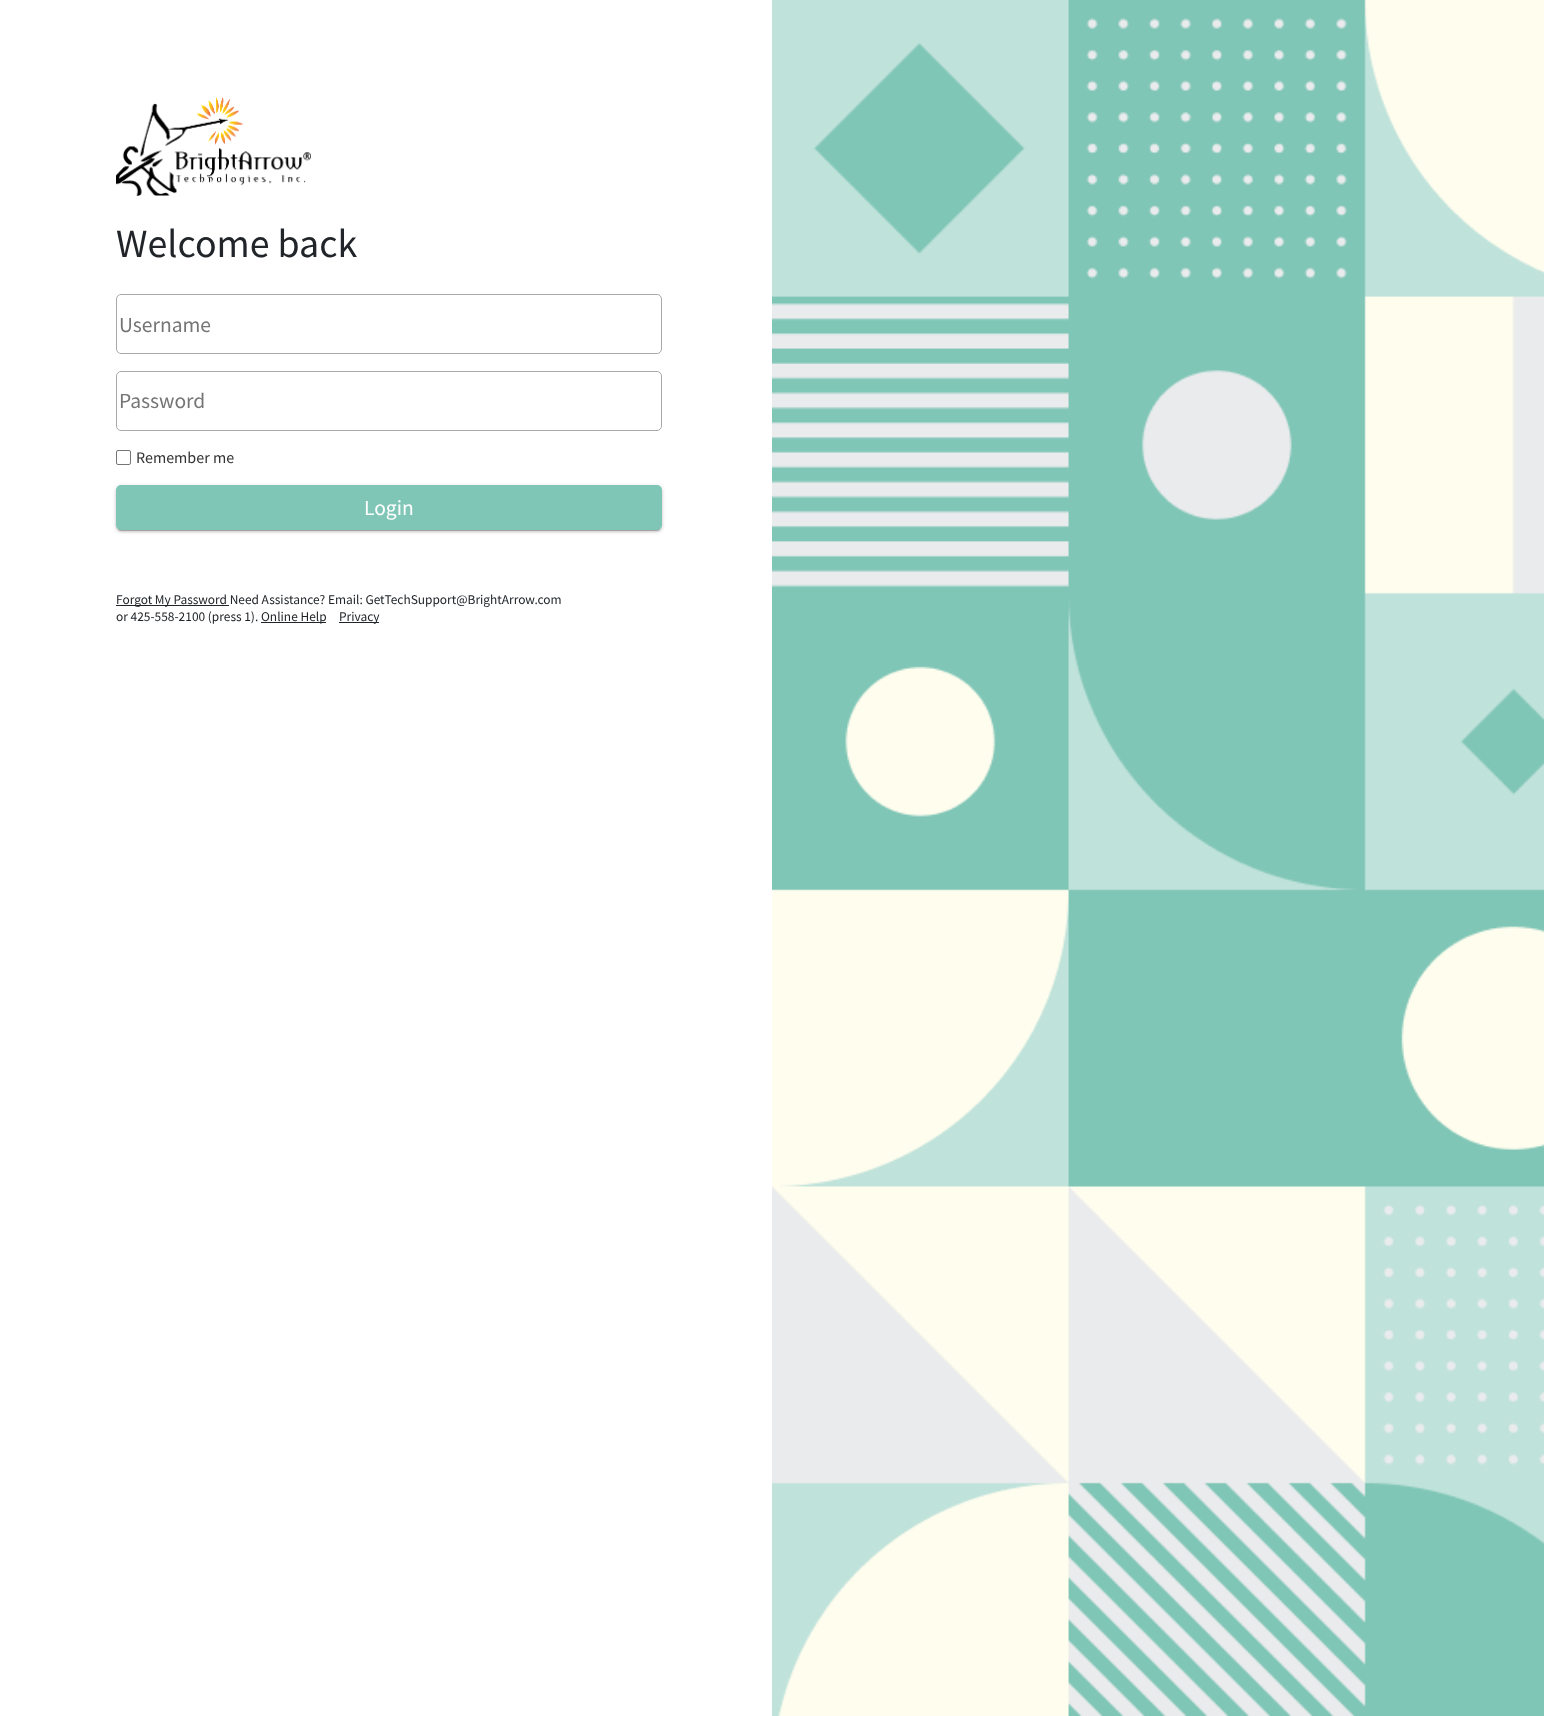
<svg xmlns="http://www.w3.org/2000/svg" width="1544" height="1716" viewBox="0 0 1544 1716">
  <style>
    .t1 { font: 40px Source Sans Pro; fill: #212529; }
    .t2 { font: 21.5px Source Sans Pro; fill: #757575; }
    .t3 { font: 16px Source Sans Pro; fill: #333; }
    .t4 { font: 21.5px Source Sans Pro; fill: #fff; }
    .t5 { font: 13.35px Source Sans Pro; fill: #212529; }
  </style>
  <rect width="100%" height="100%" fill="#fff"/>
  <image x="116" y="97" width="195" height="99" href="images/1.png"/>
  <text x="116" y="257" class="t1">Welcome back</text>
  <rect x="116.5" y="294.5" width="545" height="59" rx="4.5" fill="none" stroke="#a9a9a9"/>
  <text x="119" y="332" class="t2">Username</text>
  <rect x="116.5" y="371.5" width="545" height="59" rx="4.5" fill="none" stroke="#a9a9a9"/>
  <text x="119" y="408" class="t2">Password</text>
  <rect x="116.5" y="450.5" width="14" height="14" rx="1.5" fill="none" stroke="#767676"/>
  <text x="136" y="463" class="t3">Remember me</text>
  <rect x="116" y="486" width="546" height="45" rx="5" fill="#0000001f" filter="blur(2.5px)"/>
  <rect x="116" y="487" width="546" height="45" rx="5" fill="#00000024" filter="blur(1px)"/>
  <rect x="118" y="490" width="542" height="41" rx="3" fill="#00000033" filter="blur(0.5px)"/>
  <rect x="116" y="485" width="546" height="45" rx="5" fill="#80c6b7"/>
  <text x="364" y="515" class="t4">Login</text>
  <rect x="116" y="605" width="113" height="1" fill="#212529"/>
  <text x="116" y="604" class="t5">Forgot My Password Need Assistance? Email: GetTechSupport@BrightArrow.com</text>
  <text x="116" y="621" class="t5">or 425-558-2100 (press 1).</text>
  <rect x="261" y="622" width="65" height="1" fill="#212529"/>
  <text x="261" y="621" class="t5">Online Help</text>
  <rect x="339" y="622" width="40" height="1" fill="#212529"/>
  <text x="339" y="621" class="t5">Privacy</text>
  <image x="772" y="0" width="772" height="1716" href="images/2.png"/>
</svg>
